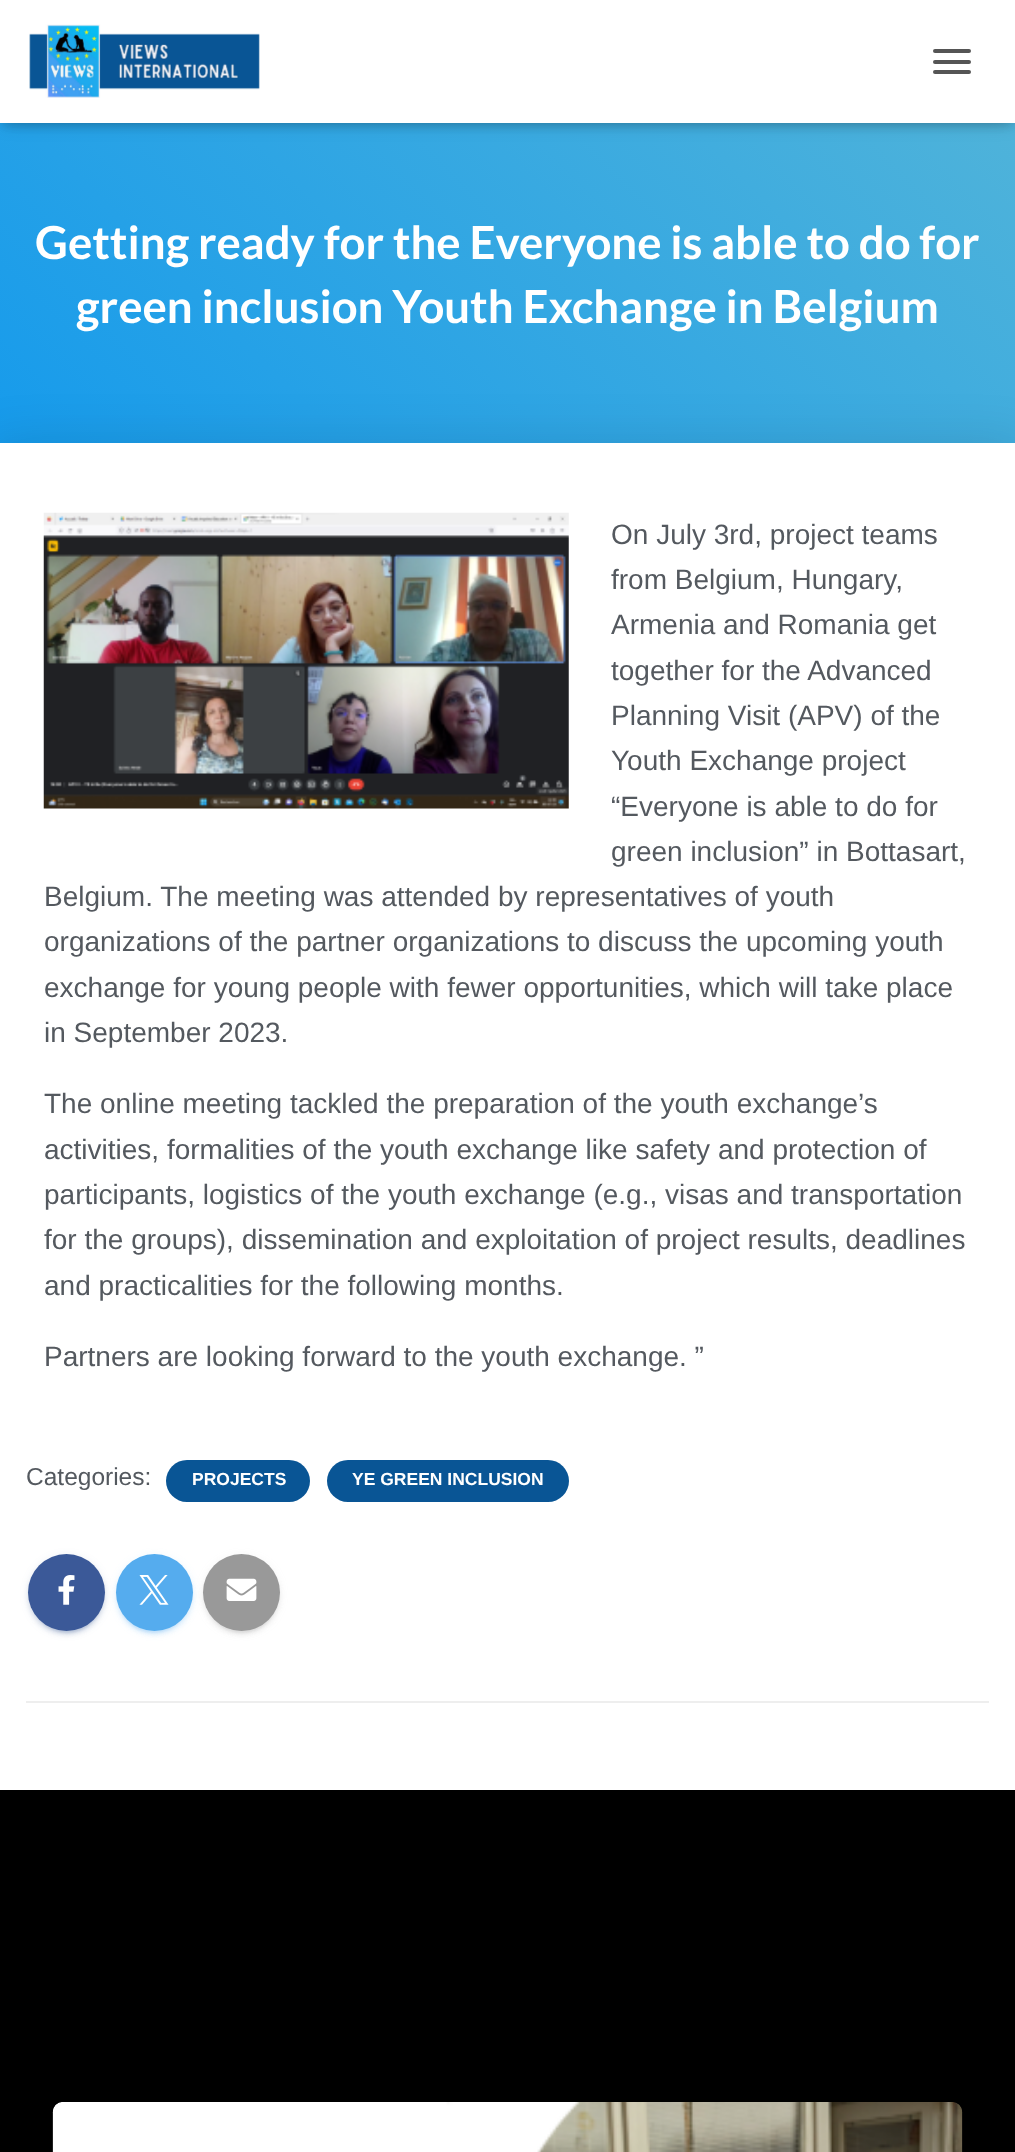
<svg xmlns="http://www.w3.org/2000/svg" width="1015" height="2152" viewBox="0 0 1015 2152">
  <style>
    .t1 { font: bold 45.5px Lato; fill: #fff; }
    .t2 { font: 28px Liberation Sans; fill: #54595f; }
    .t3 { font: 24.5px Liberation Sans; fill: #54595f; }
    .t4 { font: bold 17.5px Liberation Sans; fill: #fff; }
  </style>
  <defs>
    <linearGradient id="g1" gradientUnits="userSpaceOnUse" x1="117" y1="665" x2="898" y2="-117"><stop offset="0" stop-color="#1299ed"/><stop offset="1" stop-color="#54b5d8"/></linearGradient>
  </defs>
  <rect width="100%" height="100%" fill="#000"/>
  <rect x="0" y="123" width="1015" height="320" fill="url(#g1)"/>
  <rect x="4" y="11" width="1008" height="115" fill="#0000001a" filter="blur(4.5px)"/>
  <rect x="0" y="2" width="1015" height="122" fill="#0000001f" filter="blur(9px)"/>
  <rect x="11" y="12" width="994" height="102" fill="#0000006b" filter="blur(9px)"/>
  <rect x="0" y="0" width="1015" height="123" fill="#fff"/>
  <image x="29" y="24" width="231" height="74" href="images/1.png"/>
  <rect x="933" y="49" width="38" height="4" rx="2" fill="#555"/>
  <rect x="933" y="60" width="38" height="4" rx="2" fill="#555"/>
  <rect x="933" y="70" width="38" height="4" rx="2" fill="#555"/>
  <text x="35" y="259" class="t1">Getting ready for the Everyone is able to do for</text>
  <text x="76" y="323" class="t1">green inclusion Youth Exchange in Belgium</text>
  <rect x="-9" y="445" width="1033" height="1365" fill="#0000001f" filter="blur(26px)"/>
  <rect x="0" y="443" width="1015" height="1347" fill="#fff"/>
  <image x="43" y="512" width="526" height="297" href="images/2.png"/>
  <text x="611" y="544" class="t2">On July 3rd, project teams</text>
  <text x="611" y="589" class="t2">from Belgium, Hungary,</text>
  <text x="611" y="634" class="t2">Armenia and Romania get</text>
  <text x="611" y="680" class="t2">together for the Advanced</text>
  <text x="611" y="725" class="t2">Planning Visit (APV) of the</text>
  <text x="611" y="770" class="t2">Youth Exchange project</text>
  <text x="611" y="816" class="t2">“Everyone is able to do for</text>
  <text x="611" y="861" class="t2">green inclusion” in Bottasart,</text>
  <text x="44" y="906" class="t2">Belgium. The meeting was attended by representatives of youth</text>
  <text x="44" y="951" class="t2">organizations of the partner organizations to discuss the upcoming youth</text>
  <text x="44" y="997" class="t2">exchange for young people with fewer opportunities, which will take place</text>
  <text x="44" y="1042" class="t2">in September 2023.</text>
  <text x="44" y="1113" class="t2">The online meeting tackled the preparation of the youth exchange’s</text>
  <text x="44" y="1159" class="t2">activities, formalities of the youth exchange like safety and protection of</text>
  <text x="44" y="1204" class="t2">participants, logistics of the youth exchange (e.g., visas and transportation</text>
  <text x="44" y="1249" class="t2">for the groups), dissemination and exploitation of project results, deadlines</text>
  <text x="44" y="1295" class="t2">and practicalities for the following months.</text>
  <text x="44" y="1366" class="t2">Partners are looking forward to the youth exchange. ”</text>
  <text x="26" y="1485" class="t3">Categories:</text>
  <rect x="166" y="1460" width="144" height="42" rx="21" fill="#095595"/>
  <text x="192" y="1485" class="t4">PROJECTS</text>
  <rect x="327" y="1460" width="242" height="42" rx="21" fill="#095595"/>
  <text x="352" y="1485" class="t4">YE GREEN INCLUSION</text>
  <rect x="28" y="1556" width="77" height="77" rx="38.5" fill="#3b59981f" filter="blur(4.5px)"/>
  <rect x="32" y="1563" width="70" height="70" rx="35" fill="#3b599833" filter="blur(1px)"/>
  <rect x="28" y="1558" width="77" height="77" rx="38.5" fill="#3b599824" filter="blur(2px)"/>
  <circle cx="66.5" cy="1592.5" r="38.5" fill="#3b5998"/>
  <image x="58" y="1575" width="17" height="30" href="images/3.png"/>
  <rect x="116" y="1556" width="77" height="77" rx="38.5" fill="#55acee1f" filter="blur(4.5px)"/>
  <rect x="119" y="1563" width="70" height="70" rx="35" fill="#55acee33" filter="blur(1px)"/>
  <rect x="116" y="1558" width="77" height="77" rx="38.5" fill="#55acee24" filter="blur(2px)"/>
  <circle cx="154.5" cy="1592.5" r="38.5" fill="#55acee"/>
  <image x="139" y="1575" width="30" height="30" href="images/4.png"/>
  <rect x="203" y="1556" width="77" height="77" rx="38.5" fill="#9999991f" filter="blur(4.5px)"/>
  <rect x="207" y="1563" width="70" height="70" rx="35" fill="#99999933" filter="blur(1px)"/>
  <rect x="203" y="1558" width="77" height="77" rx="38.5" fill="#99999924" filter="blur(2px)"/>
  <circle cx="241.5" cy="1592.5" r="38.5" fill="#999"/>
  <image x="226" y="1578" width="31" height="23" href="images/5.png"/>
  <rect x="26" y="1701" width="963" height="2" fill="#eee"/>
  <image x="52" y="2102" width="911" height="50" href="images/6.png"/>
</svg>
